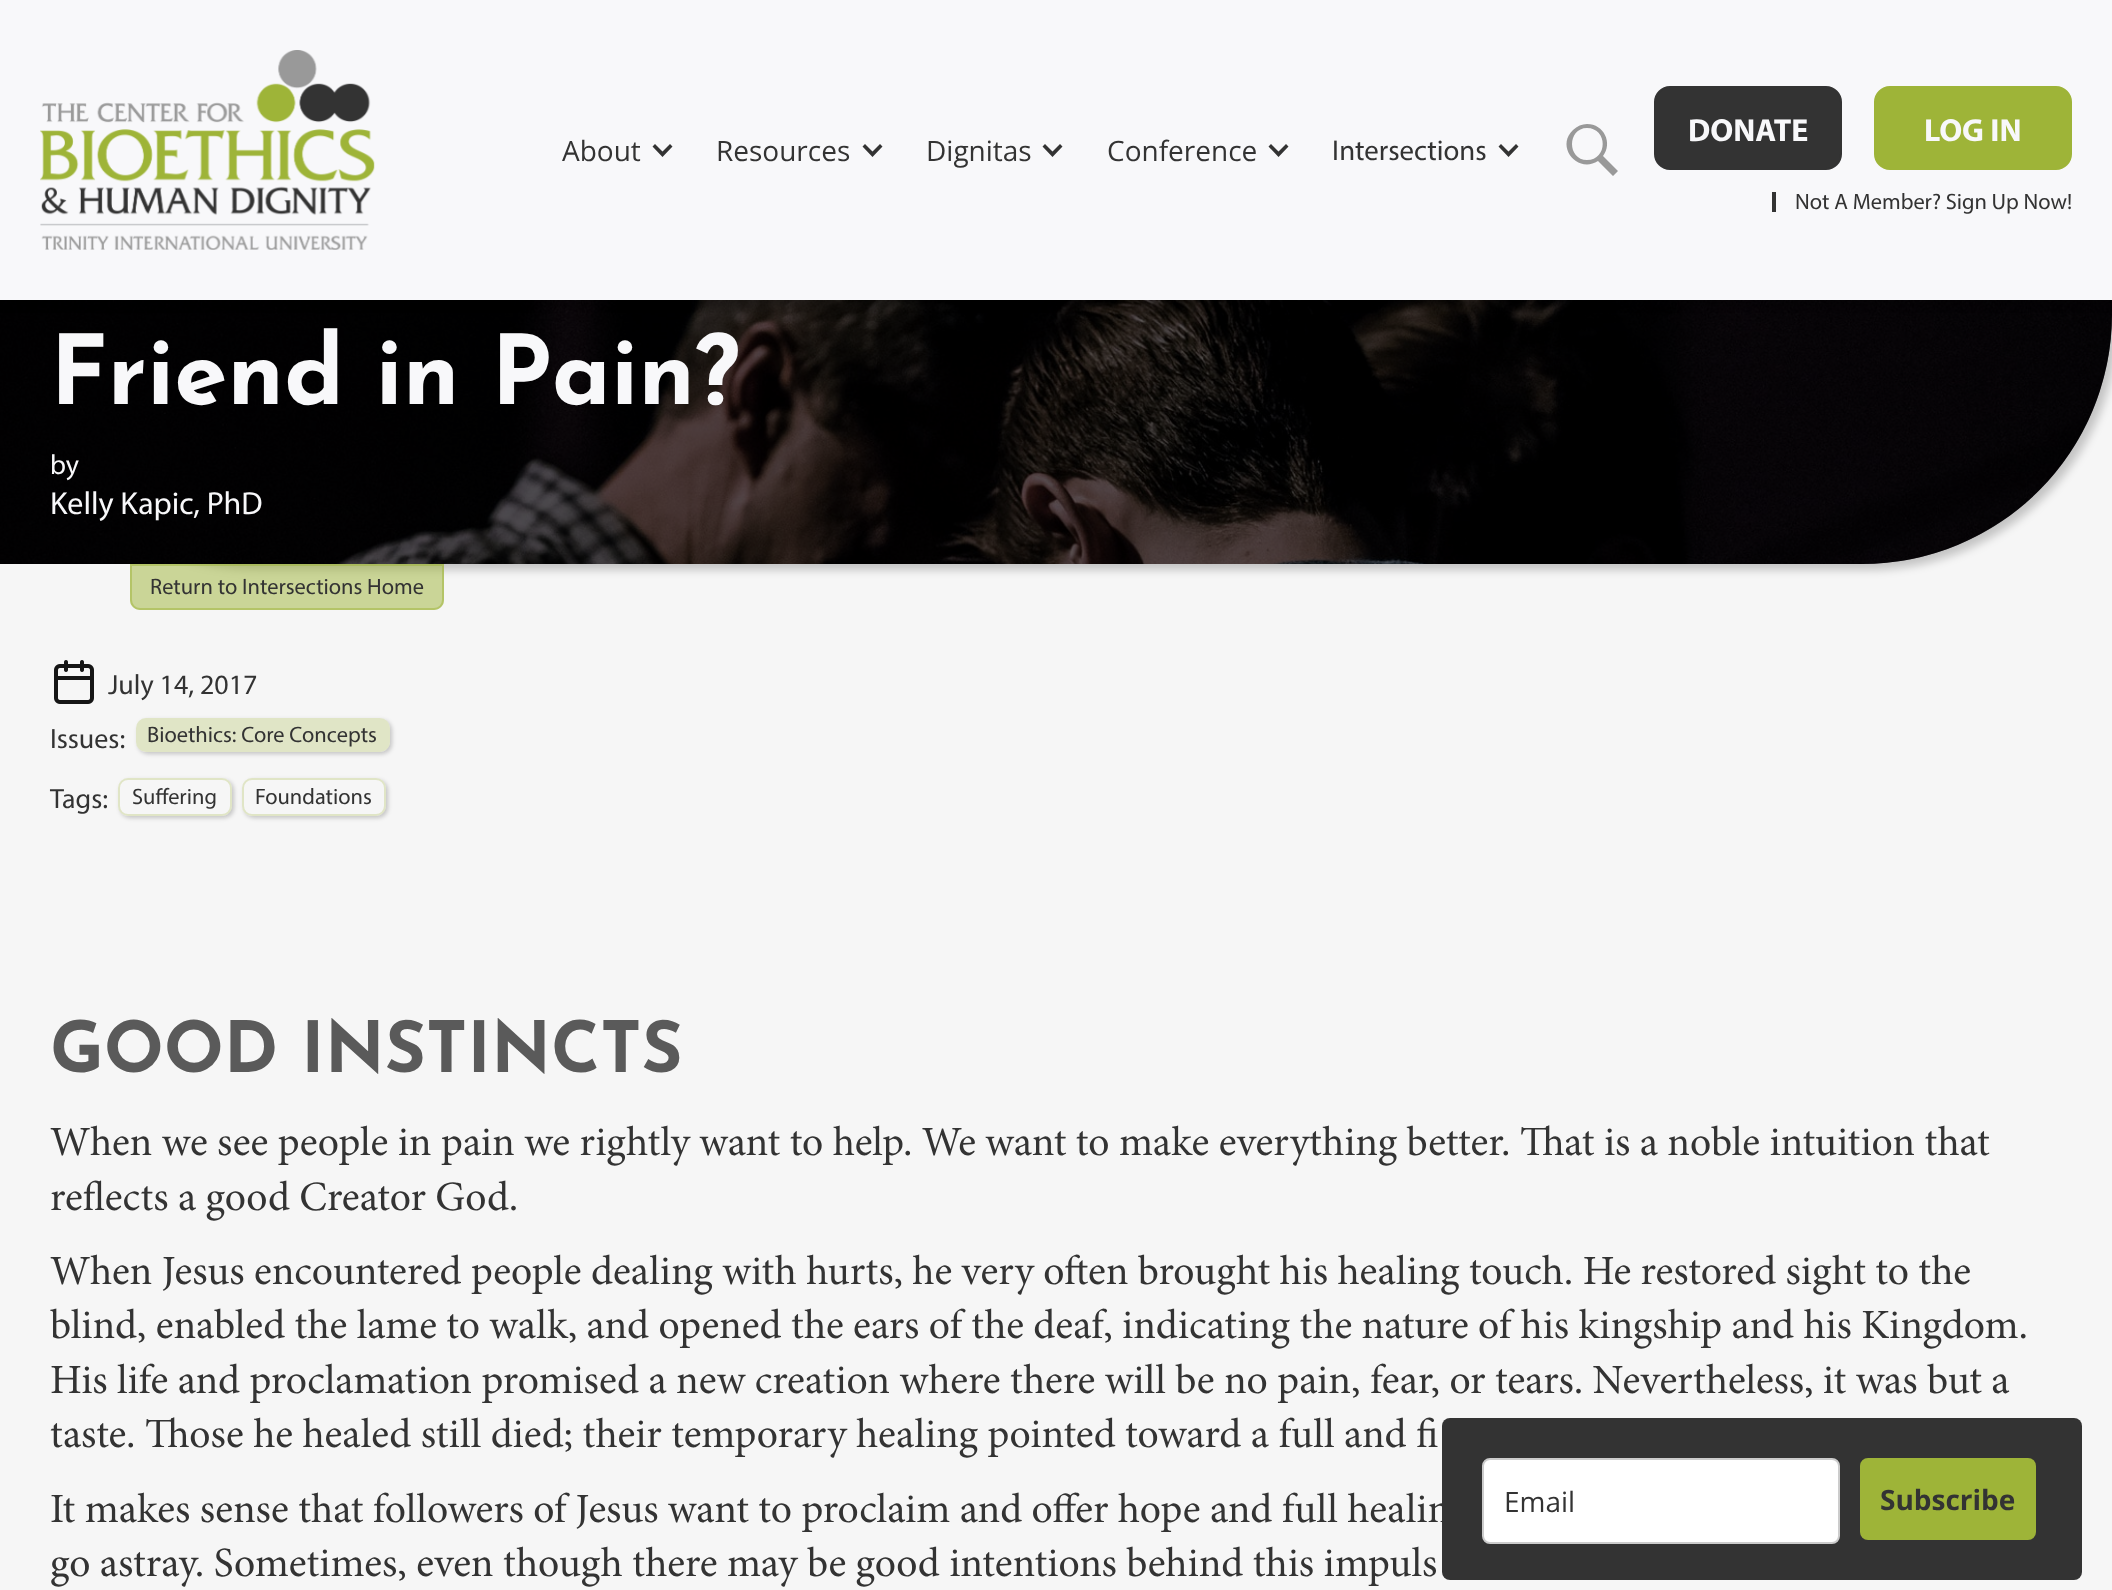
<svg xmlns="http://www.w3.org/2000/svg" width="2112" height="1590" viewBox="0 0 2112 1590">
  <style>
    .t1 { font: 28px Open Sans; fill: #333; }
    .t2 { font: 28.75px Myriad; fill: #333; }
    .t3 { font: bold 32px Myriad; fill: #f8f8fa; }
    .t4 { font: 22.4px Myriad; fill: #333; }
    .t5 { font: bold 96px Josefin Sans; fill: #f8f8fa; }
    .t6 { font: 28px Myriad; fill: #f8f8fa; }
    .t7 { font: 32px Myriad; fill: #f8f8fa; }
    .t8 { font: 28px Myriad; fill: #333; }
    .t9 { font: bold 70.5px Josefin Sans; fill: #5a5a5a; }
    .t10 { font: 41.6px Minion; fill: #333; }
    .t11 { font: bold 28px Open Sans; fill: #333; }
  </style>
  <defs>
    <clipPath id="clip1"><path d="M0 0H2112V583H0ZM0-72H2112V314C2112 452 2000 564 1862 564H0Z" clip-rule="evenodd"/></clipPath>
    <clipPath id="clip2"><rect x="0" y="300" width="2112" height="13"/></clipPath>
    <clipPath id="clip3"><path d="M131 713H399V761H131ZM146 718H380C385.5 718 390 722.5 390 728V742C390 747.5 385.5 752 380 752H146C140.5 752 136 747.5 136 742V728C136 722.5 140.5 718 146 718Z" clip-rule="evenodd"/></clipPath>
    <clipPath id="clip4"><path d="M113 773H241V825H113ZM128 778H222C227.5 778 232 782.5 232 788V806C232 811.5 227.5 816 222 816H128C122.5 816 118 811.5 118 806V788C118 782.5 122.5 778 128 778Z" clip-rule="evenodd"/></clipPath>
    <clipPath id="clip5"><path d="M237 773H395V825H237ZM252 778H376C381.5 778 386 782.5 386 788V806C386 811.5 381.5 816 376 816H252C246.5 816 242 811.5 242 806V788C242 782.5 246.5 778 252 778Z" clip-rule="evenodd"/></clipPath>
  </defs>
  <rect width="100%" height="100%" fill="#f6f6f6"/>
  <path d="M0-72H2112V314C2112 452 2000 564 1862 564H0Z" fill="#fff"/>
  <image x="0" y="300" width="2112" height="264" href="images/2.png"/>
  <g clip-path="url(#clip1)">
    <rect x="6" y="-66" width="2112" height="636" rx="250" fill="#00000033" filter="blur(4px)"/>
  </g>
  <path d="M0-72H2112V314C2112 452 2000 564 1862 564H0Z" fill="#000000a6"/>
  <rect x="0" y="0" width="2112" height="300" fill="#f8f8fa"/>
  <g clip-path="url(#clip2)">
    <rect x="0" y="8" width="2112" height="300" fill="#00000033" filter="blur(4px)"/>
  </g>
  <image x="40" y="50" width="335" height="200" href="images/1.png"/>
  <text x="562" y="161" class="t1">About</text>
  <path d="M670 144L662.5 151.5L655 144L652.5 146.5L662.5 157L672.5 146.5Z" fill="#333"/>
  <text x="716" y="161" class="t1">Resources</text>
  <path d="M880 144L872.5 151.5L865 144L862.5 146.5L872.5 157L882.5 146.5Z" fill="#333"/>
  <text x="926" y="161" class="t1">Dignitas</text>
  <path d="M1060 144L1052.5 151.5L1045 144L1042.5 146.5L1052.5 157L1062.5 146.5Z" fill="#333"/>
  <text x="1107" y="161" class="t1">Conference</text>
  <path d="M1286 144L1278.5 151.5L1271 144L1268.5 146.5L1278.5 157L1288.5 146.5Z" fill="#333"/>
  <text x="1332" y="160" class="t2">Intersections</text>
  <path d="M1516 144L1508.5 151.5L1501 144L1498.5 146.5L1508.5 157L1518.5 146.5Z" fill="#333"/>
  <path d="M1587 124C1582 124 1577 126 1573 130C1555 147 1578 174 1598 161L1613 176L1618 171L1603 156C1613 143 1604 124 1587 124ZM1587 128C1608 128 1608 160 1587 160C1567 160 1567 128 1587 128Z" fill="#999"/>
  <rect x="1655" y="87" width="186" height="82" rx="15" fill="#333" stroke="#333" stroke-width="2"/>
  <text x="1688" y="141" class="t3">DONATE</text>
  <rect x="1875" y="87" width="196" height="82" rx="15" fill="#9eb438" stroke="#9eb438" stroke-width="2"/>
  <text x="1924" y="141" class="t3">LOG IN</text>
  <rect x="1772" y="192" width="4" height="20" fill="#333"/>
  <text x="1795" y="209" class="t4">Not A Member? Sign Up Now!</text>
  <text x="50" y="404" class="t5">Friend in Pain?</text>
  <text x="50" y="474" class="t6">by</text>
  <text x="50" y="514" class="t7">Kelly Kapic, PhD</text>
  <path d="M130 564H444V600C444 605.5 439.5 610 434 610H140C134.5 610 130 605.5 130 600Z" fill="#9eb43880"/>
  <path d="M131 565H443V600C443 605 439 609 434 609H140C135 609 131 605 131 600Z" fill="none" stroke="#9eb43880" stroke-width="2"/>
  <text x="150" y="594" class="t4">Return to Intersections Home</text>
  <image x="54" y="660" width="40" height="44" href="images/3.png"/>
  <text x="108" y="694" class="t8">July 14, 2017</text>
  <text x="50" y="748" class="t8">Issues:</text>
  <g clip-path="url(#clip3)">
    <rect x="138" y="720" width="254" height="34" rx="10" fill="#00000033" filter="blur(2px)"/>
  </g>
  <rect x="136" y="718" width="254" height="34" rx="10" fill="#9eb43840"/>
  <text x="147" y="742" class="t4">Bioethics: Core Concepts</text>
  <text x="50" y="808" class="t8">Tags:</text>
  <g clip-path="url(#clip4)">
    <rect x="120" y="780" width="114" height="38" rx="10" fill="#00000033" filter="blur(2px)"/>
  </g>
  <rect x="119" y="779" width="112" height="36" rx="9" fill="none" stroke="#9eb43840" stroke-width="2"/>
  <text x="132" y="804" class="t4">Suffering</text>
  <g clip-path="url(#clip5)">
    <rect x="244" y="780" width="144" height="38" rx="10" fill="#00000033" filter="blur(2px)"/>
  </g>
  <rect x="243" y="779" width="142" height="36" rx="9" fill="none" stroke="#9eb43840" stroke-width="2"/>
  <text x="255" y="804" class="t4">Foundations</text>
  <text x="50" y="1072" class="t9">GOOD INSTINCTS</text>
  <text x="50" y="1155" class="t10">When we see people in pain we rightly want to help. We want to make everything better. That is a noble intuition that</text>
  <text x="50" y="1210" class="t10">reflects a good Creator God.</text>
  <text x="50" y="1284" class="t10">When Jesus encountered people dealing with hurts, he very often brought his healing touch. He restored sight to the</text>
  <text x="50" y="1338" class="t10">blind, enabled the lame to walk, and opened the ears of the deaf, indicating the nature of his kingship and his Kingdom.</text>
  <text x="50" y="1393" class="t10">His life and proclamation promised a new creation where there will be no pain, fear, or tears. Nevertheless, it was but a</text>
  <text x="50" y="1447" class="t10">taste. Those he healed still died; their temporary healing pointed toward a full and fi</text>
  <text x="50" y="1522" class="t10">It makes sense that followers of Jesus want to proclaim and offer hope and full healin</text>
  <text x="50" y="1576" class="t10">go astray. Sometimes, even though there may be good intentions behind this impuls</text>
  <rect x="1442" y="1418" width="640" height="162" rx="8" fill="#333"/>
  <rect x="1483" y="1459" width="356" height="84" rx="7" fill="#fff" stroke="#ccc" stroke-width="2"/>
  <text x="1504" y="1512" class="t1">Email</text>
  <rect x="1860" y="1458" width="176" height="82" rx="8" fill="#9eb438"/>
  <text x="1880" y="1510" class="t11">Subscribe</text>
</svg>
